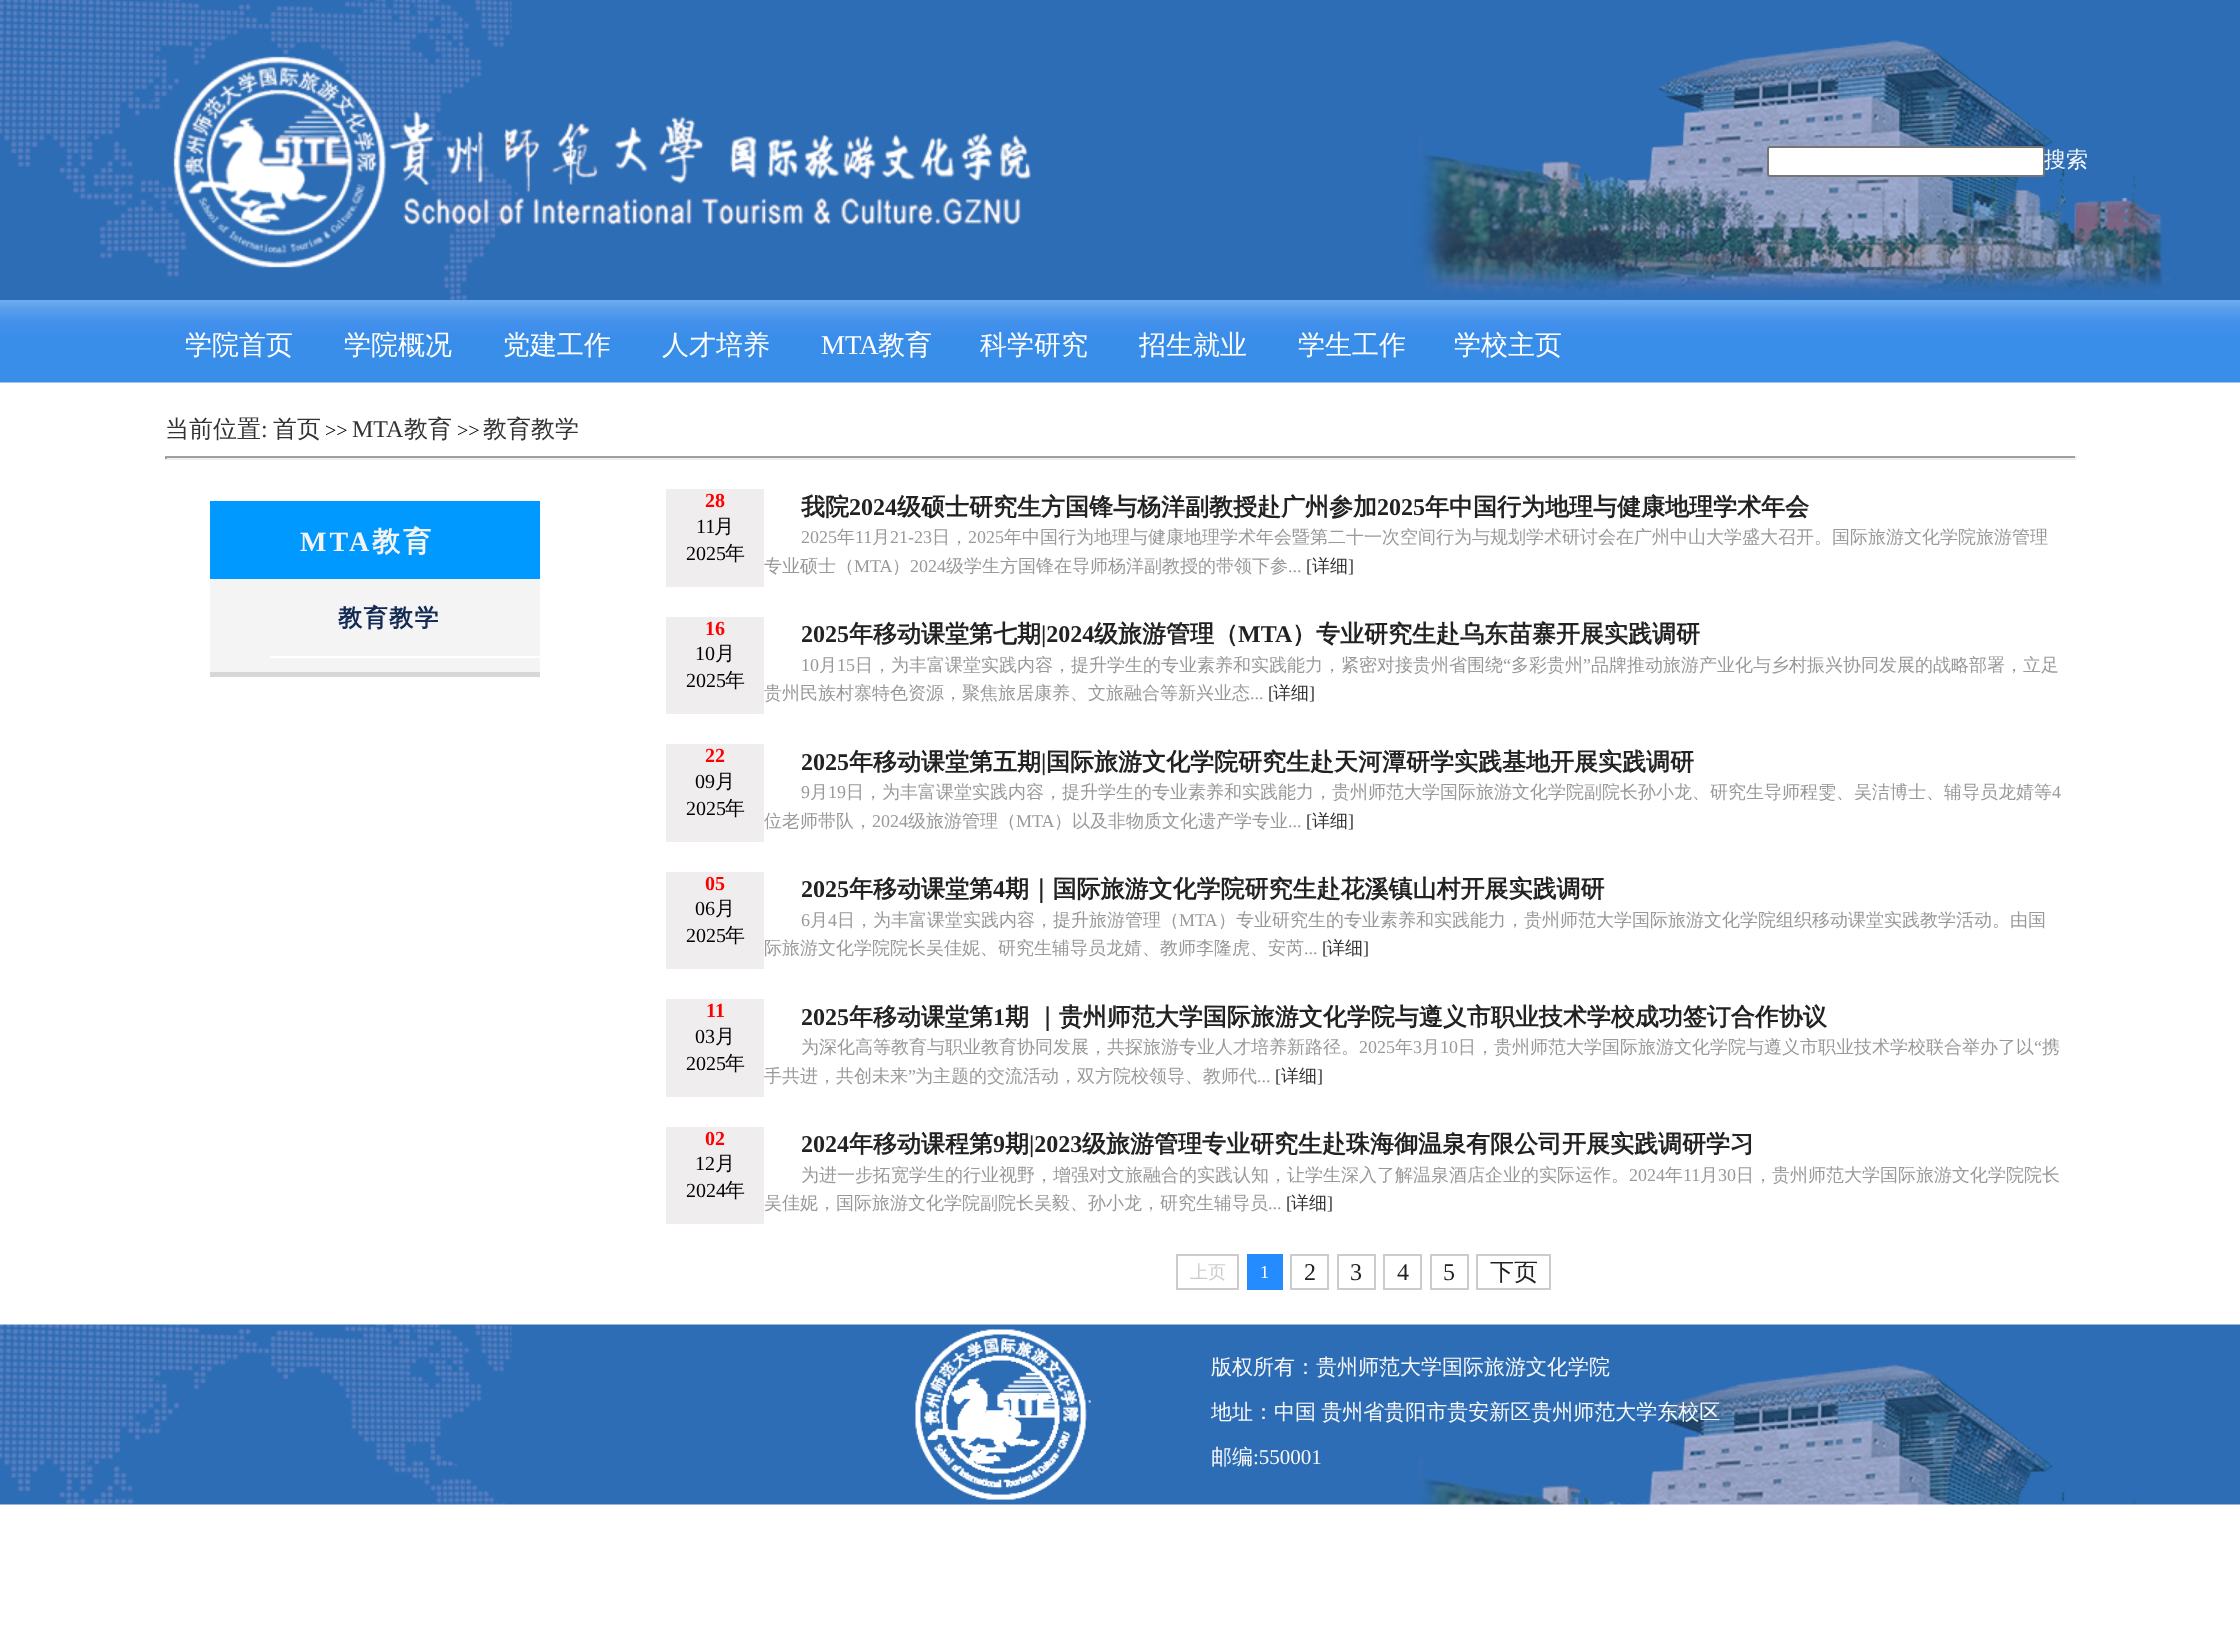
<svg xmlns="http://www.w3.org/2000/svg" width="2240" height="1646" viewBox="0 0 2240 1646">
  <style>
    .t1 { font: 500 22px WenQuanYi Zen Hei; fill: #f8f8f8; }
    .t2 { font: 500 27px WenQuanYi Zen Hei; fill: #fff; }
    .t3 { font: 27px Liberation Serif; fill: #fff; }
    .t4 { font: 500 24px WenQuanYi Zen Hei; fill: #333; }
    .t5 { font: 24px Liberation Serif; fill: #333; }
    .t6 { font: 20px Liberation Serif; fill: #000; }
    .t7 { font: bold 28px Liberation Serif; letter-spacing: 3px; fill: #f5f2f2; }
    .t8 { font: bold 28px WenQuanYi Zen Hei; letter-spacing: 3px; fill: #f5f2f2; }
    .t9 { font: bold 24px WenQuanYi Zen Hei; letter-spacing: 1.5px; fill: #132a54; }
    .t10 { font: 500 18px WenQuanYi Zen Hei; fill: #999; }
    .t11 { font: bold 20px Liberation Serif; fill: #f00; }
    .t12 { font: 500 20px WenQuanYi Zen Hei; fill: #000; }
    .t13 { font: bold 24px WenQuanYi Zen Hei; fill: #222; }
    .t14 { font: bold 24px Liberation Serif; fill: #222; }
    .t15 { font: 18px Liberation Serif; fill: #999; }
    .t16 { font: 18px Liberation Serif; fill: #333; }
    .t17 { font: 500 18px WenQuanYi Zen Hei; fill: #333; }
    .t18 { font: 500 18px WenQuanYi Zen Hei; fill: #ccc; }
    .t19 { font: 18px Liberation Serif; fill: #fff; }
    .t20 { font: 24px Liberation Serif; fill: #222; }
    .t21 { font: 500 24px WenQuanYi Zen Hei; fill: #222; }
    .t22 { font: 500 21px WenQuanYi Zen Hei; fill: #f8f8f8; }
    .t23 { font: 21px Liberation Serif; fill: #f8f8f8; }
  </style>
  <rect width="100%" height="100%" fill="#fff"/>
  <image x="0" y="0" width="2240" height="300" href="images/1.png"/>
  <image x="173" y="56" width="858" height="212" href="images/2.png"/>
  <rect x="1768" y="147" width="276" height="29" rx="2" fill="#fff" stroke="#767676" stroke-width="2"/>
  <text x="2044" y="167" class="t1">搜索</text>
  <image x="0" y="300" width="2240" height="83" href="images/3.png"/>
  <text x="185" y="354" class="t2">学院首页</text>
  <text x="344" y="354" class="t2">学院概况</text>
  <text x="503" y="354" class="t2">党建工作</text>
  <text x="662" y="354" class="t2">人才培养</text>
  <text x="821" y="354" class="t3">MTA</text>
  <text x="878" y="354" class="t2">教育</text>
  <text x="980" y="354" class="t2">科学研究</text>
  <text x="1139" y="354" class="t2">招生就业</text>
  <text x="1298" y="354" class="t2">学生工作</text>
  <text x="1454" y="354" class="t2">学校主页</text>
  <text x="165" y="437" class="t4">当前位置</text>
  <text x="261" y="437" class="t5">:</text>
  <text x="273" y="437" class="t4">首页</text>
  <text x="325" y="437" class="t6">&gt;&gt;</text>
  <text x="352" y="437" class="t5">MTA</text>
  <text x="404" y="437" class="t4">教育</text>
  <text x="457" y="437" class="t6">&gt;&gt;</text>
  <text x="483" y="437" class="t4">教育教学</text>
  <rect x="165" y="456" width="1911" height="2" fill="#9f9f9f"/>
  <rect x="2075" y="456" width="2" height="3" fill="#eee"/>
  <rect x="165" y="458" width="1911" height="2" fill="#eee"/>
  <rect x="165" y="456" width="2" height="3" fill="#9f9f9f"/>
  <rect x="210" y="579" width="330" height="93" fill="#f4f4f4"/>
  <rect x="210" y="672" width="330" height="5" fill="#d7d7d7"/>
  <rect x="210" y="501" width="330" height="78" fill="#09f"/>
  <text x="300" y="551" class="t7">MTA</text>
  <text x="372" y="551" class="t8">教育</text>
  <rect x="270" y="656" width="270" height="2" fill="#fff"/>
  <text x="338" y="626" class="t9">教育教学</text>
  <text x="764" y="572" class="t10">专业硕士（</text>
  <rect x="666" y="489" width="98" height="98" fill="#efedee"/>
  <text x="705" y="507" class="t11">28</text>
  <text x="696" y="533" class="t6">11</text>
  <text x="714" y="533" class="t12">月</text>
  <text x="686" y="560" class="t6">2025</text>
  <text x="725" y="560" class="t12">年</text>
  <text x="801" y="515" class="t13">我院</text>
  <text x="849" y="515" class="t14">2024</text>
  <text x="897" y="515" class="t13">级硕士研究生方国锋与杨洋副教授赴广州参加</text>
  <text x="1377" y="515" class="t14">2025</text>
  <text x="1425" y="515" class="t13">年中国行为地理与健康地理学术年会</text>
  <text x="801" y="543" class="t15">2025</text>
  <text x="837" y="543" class="t10">年</text>
  <text x="855" y="543" class="t15">11</text>
  <text x="872" y="543" class="t10">月</text>
  <text x="890" y="543" class="t15">21-23</text>
  <text x="932" y="543" class="t10">日，</text>
  <text x="968" y="543" class="t15">2025</text>
  <text x="1004" y="543" class="t10">年中国行为地理与健康地理学术年会暨第二十一次空间行为与规划学术研讨会在广州中山大学盛大召开。国际旅游文化学院旅游管理</text>
  <text x="854" y="572" class="t15">MTA</text>
  <text x="892" y="572" class="t10">）</text>
  <text x="910" y="572" class="t15">2024</text>
  <text x="946" y="572" class="t10">级学生方国锋在导师杨洋副教授的带领下参</text>
  <text x="1288" y="572" class="t15">...</text>
  <text x="1306" y="572" class="t16">[</text>
  <text x="1312" y="572" class="t17">详细</text>
  <text x="1348" y="572" class="t16">]</text>
  <text x="764" y="699" class="t10">贵州民族村寨特色资源，聚焦旅居康养、文旅融合等新兴业态</text>
  <rect x="666" y="617" width="98" height="97" fill="#efedee"/>
  <text x="705" y="635" class="t11">16</text>
  <text x="695" y="660" class="t6">10</text>
  <text x="715" y="660" class="t12">月</text>
  <text x="686" y="687" class="t6">2025</text>
  <text x="725" y="687" class="t12">年</text>
  <text x="801" y="642" class="t14">2025</text>
  <text x="849" y="642" class="t13">年移动课堂第七期</text>
  <text x="1041" y="642" class="t14">|2024</text>
  <text x="1094" y="642" class="t13">级旅游管理（</text>
  <text x="1238" y="642" class="t14">MTA</text>
  <text x="1292" y="642" class="t13">）专业研究生赴乌东苗寨开展实践调研</text>
  <text x="801" y="671" class="t15">10</text>
  <text x="819" y="671" class="t10">月</text>
  <text x="837" y="671" class="t15">15</text>
  <text x="855" y="671" class="t10">日，为丰富课堂实践内容，提升学生的专业素养和实践能力，紧密对接贵州省围绕</text>
  <text x="1503" y="671" class="t15">“</text>
  <text x="1511" y="671" class="t10">多彩贵州</text>
  <text x="1583" y="671" class="t15">”</text>
  <text x="1591" y="671" class="t10">品牌推动旅游产业化与乡村振兴协同发展的战略部署，立足</text>
  <text x="1250" y="699" class="t15">...</text>
  <text x="1268" y="699" class="t16">[</text>
  <text x="1273" y="699" class="t17">详细</text>
  <text x="1309" y="699" class="t16">]</text>
  <text x="764" y="827" class="t10">位老师带队，</text>
  <rect x="666" y="744" width="98" height="98" fill="#efedee"/>
  <text x="705" y="762" class="t11">22</text>
  <text x="695" y="788" class="t6">09</text>
  <text x="715" y="788" class="t12">月</text>
  <text x="686" y="815" class="t6">2025</text>
  <text x="725" y="815" class="t12">年</text>
  <text x="801" y="770" class="t14">2025</text>
  <text x="849" y="770" class="t13">年移动课堂第五期</text>
  <text x="1041" y="770" class="t14">|</text>
  <text x="1046" y="770" class="t13">国际旅游文化学院研究生赴天河潭研学实践基地开展实践调研</text>
  <text x="801" y="798" class="t15">9</text>
  <text x="810" y="798" class="t10">月</text>
  <text x="828" y="798" class="t15">19</text>
  <text x="846" y="798" class="t10">日，为丰富课堂实践内容，提升学生的专业素养和实践能力，贵州师范大学国际旅游文化学院副院长孙小龙、研究生导师程雯、吴洁博士、辅导员龙婧等</text>
  <text x="2052" y="798" class="t15">4</text>
  <text x="872" y="827" class="t15">2024</text>
  <text x="908" y="827" class="t10">级旅游管理（</text>
  <text x="1016" y="827" class="t15">MTA</text>
  <text x="1054" y="827" class="t10">）以及非物质文化遗产学专业</text>
  <text x="1288" y="827" class="t15">...</text>
  <text x="1306" y="827" class="t16">[</text>
  <text x="1312" y="827" class="t17">详细</text>
  <text x="1348" y="827" class="t16">]</text>
  <rect x="666" y="872" width="98" height="97" fill="#efedee"/>
  <text x="705" y="890" class="t11">05</text>
  <text x="695" y="915" class="t6">06</text>
  <text x="715" y="915" class="t12">月</text>
  <text x="686" y="942" class="t6">2025</text>
  <text x="725" y="942" class="t12">年</text>
  <text x="801" y="897" class="t14">2025</text>
  <text x="849" y="897" class="t13">年移动课堂第</text>
  <text x="993" y="897" class="t14">4</text>
  <text x="1005" y="897" class="t13">期｜国际旅游文化学院研究生赴花溪镇山村开展实践调研</text>
  <text x="801" y="926" class="t15">6</text>
  <text x="810" y="926" class="t10">月</text>
  <text x="828" y="926" class="t15">4</text>
  <text x="837" y="926" class="t10">日，为丰富课堂实践内容，提升旅游管理（</text>
  <text x="1179" y="926" class="t15">MTA</text>
  <text x="1218" y="926" class="t10">）专业研究生的专业素养和实践能力，贵州师范大学国际旅游文化学院组织移动课堂实践教学活动。由国</text>
  <text x="764" y="954" class="t10">际旅游文化学院院长吴佳妮、研究生辅导员龙婧、教师李隆虎、安芮</text>
  <text x="1304" y="954" class="t15">...</text>
  <text x="1322" y="954" class="t16">[</text>
  <text x="1327" y="954" class="t17">详细</text>
  <text x="1363" y="954" class="t16">]</text>
  <text x="764" y="1082" class="t10">手共进，共创未来</text>
  <rect x="666" y="999" width="98" height="98" fill="#efedee"/>
  <text x="706" y="1017" class="t11">11</text>
  <text x="695" y="1043" class="t6">03</text>
  <text x="715" y="1043" class="t12">月</text>
  <text x="686" y="1070" class="t6">2025</text>
  <text x="725" y="1070" class="t12">年</text>
  <text x="801" y="1025" class="t14">2025</text>
  <text x="849" y="1025" class="t13">年移动课堂第</text>
  <text x="993" y="1025" class="t14">1</text>
  <text x="1005" y="1025" word-spacing="-1" class="t13">期 ｜贵州师范大学国际旅游文化学院与遵义市职业技术学校成功签订合作协议</text>
  <text x="801" y="1053" class="t10">为深化高等教育与职业教育协同发展，共探旅游专业人才培养新路径。</text>
  <text x="1359" y="1053" class="t15">2025</text>
  <text x="1395" y="1053" class="t10">年</text>
  <text x="1413" y="1053" class="t15">3</text>
  <text x="1422" y="1053" class="t10">月</text>
  <text x="1440" y="1053" class="t15">10</text>
  <text x="1458" y="1053" class="t10">日，贵州师范大学国际旅游文化学院与遵义市职业技术学校联合举办了以</text>
  <text x="2034" y="1053" class="t15">“</text>
  <text x="2042" y="1053" class="t10">携</text>
  <text x="908" y="1082" class="t15">”</text>
  <text x="915" y="1082" class="t10">为主题的交流活动，双方院校领导、教师代</text>
  <text x="1275" y="1082" class="t16">[</text>
  <text x="1281" y="1082" class="t17">详细</text>
  <text x="1317" y="1082" class="t16">]</text>
  <text x="1257" y="1082" class="t15">...</text>
  <rect x="666" y="1127" width="98" height="97" fill="#efedee"/>
  <text x="705" y="1145" class="t11">02</text>
  <text x="695" y="1170" class="t6">12</text>
  <text x="715" y="1170" class="t12">月</text>
  <text x="686" y="1197" class="t6">2024</text>
  <text x="725" y="1197" class="t12">年</text>
  <text x="801" y="1152" class="t14">2024</text>
  <text x="849" y="1152" class="t13">年移动课程第</text>
  <text x="993" y="1152" class="t14">9</text>
  <text x="1005" y="1152" class="t13">期</text>
  <text x="1029" y="1152" class="t14">|2023</text>
  <text x="1082" y="1152" class="t13">级旅游管理专业研究生赴珠海御温泉有限公司开展实践调研学习</text>
  <text x="801" y="1181" class="t10">为进一步拓宽学生的行业视野，增强对文旅融合的实践认知，让学生深入了解温泉酒店企业的实际运作。</text>
  <text x="1629" y="1181" class="t15">2024</text>
  <text x="1665" y="1181" class="t10">年</text>
  <text x="1683" y="1181" class="t15">11</text>
  <text x="1700" y="1181" class="t10">月</text>
  <text x="1718" y="1181" class="t15">30</text>
  <text x="1736" y="1181" class="t10">日，贵州师范大学国际旅游文化学院院长</text>
  <text x="764" y="1209" class="t10">吴佳妮，国际旅游文化学院副院长吴毅、孙小龙，研究生辅导员</text>
  <text x="1268" y="1209" class="t15">...</text>
  <text x="1286" y="1209" class="t16">[</text>
  <text x="1291" y="1209" class="t17">详细</text>
  <text x="1327" y="1209" class="t16">]</text>
  <rect x="1177" y="1255" width="61" height="34" fill="none" stroke="#ccc" stroke-width="2"/>
  <text x="1190" y="1278" class="t18">上页</text>
  <rect x="1247" y="1254" width="36" height="36" fill="#258cff"/>
  <text x="1260" y="1278" class="t19">1</text>
  <rect x="1291" y="1255" width="37" height="34" fill="none" stroke="#ccc" stroke-width="2"/>
  <text x="1304" y="1280" class="t20">2</text>
  <rect x="1338" y="1255" width="37" height="34" fill="none" stroke="#ccc" stroke-width="2"/>
  <text x="1350" y="1280" class="t20">3</text>
  <rect x="1384" y="1255" width="37" height="34" fill="none" stroke="#ccc" stroke-width="2"/>
  <text x="1397" y="1280" class="t20">4</text>
  <rect x="1431" y="1255" width="37" height="34" fill="none" stroke="#ccc" stroke-width="2"/>
  <text x="1443" y="1280" class="t20">5</text>
  <rect x="1477" y="1255" width="73" height="34" fill="none" stroke="#ccc" stroke-width="2"/>
  <text x="1490" y="1280" class="t21">下页</text>
  <image x="0" y="1324" width="2240" height="181" href="images/4.png"/>
  <image x="915" y="1329" width="176" height="171" href="images/5.png"/>
  <text x="1211" y="1374" class="t22">版权所有：贵州师范大学国际旅游文化学院</text>
  <text x="1211" y="1419" word-spacing="-1" class="t22">地址：中国 贵州省贵阳市贵安新区贵州师范大学东校区</text>
  <text x="1211" y="1464" class="t22">邮编</text>
  <text x="1253" y="1464" class="t23">:550001</text>
</svg>
